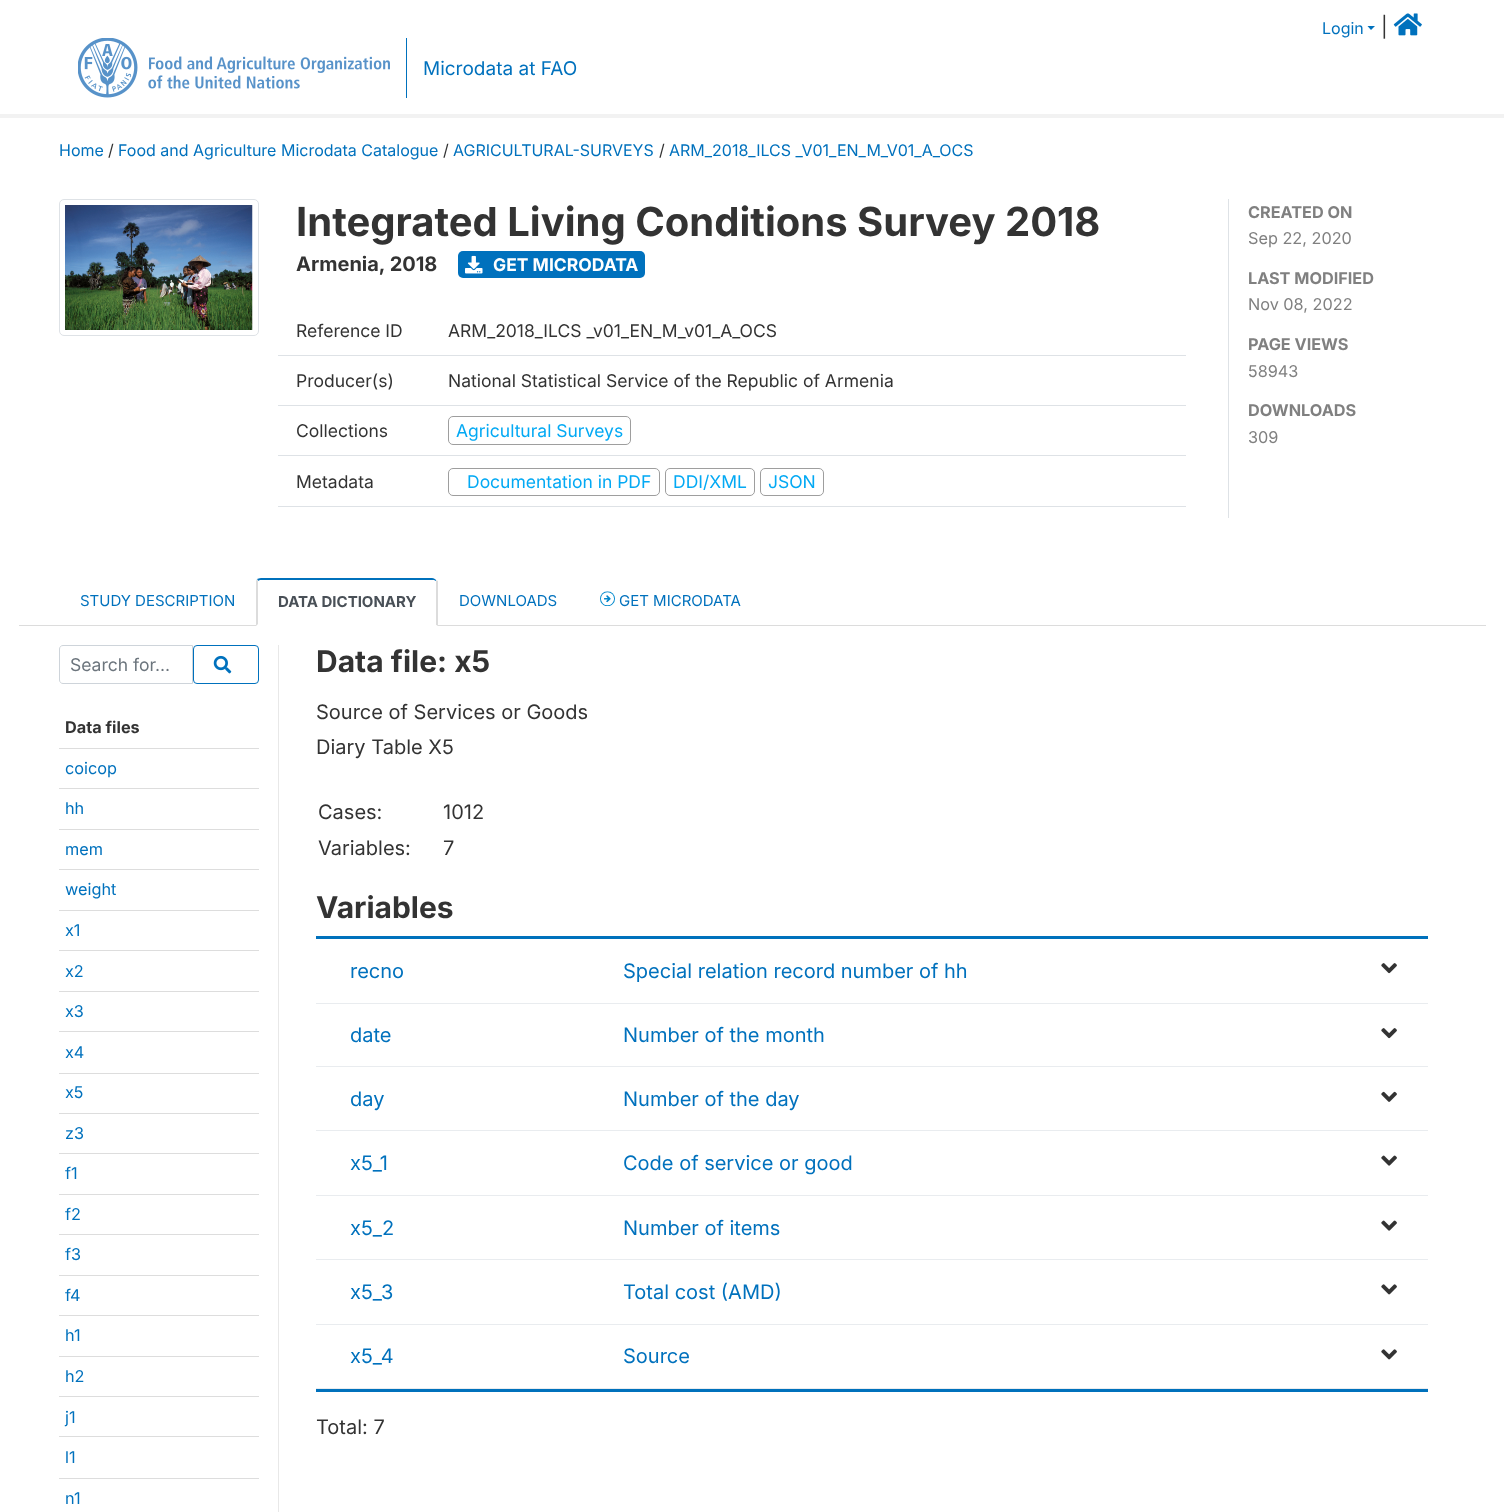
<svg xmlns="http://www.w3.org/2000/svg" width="1504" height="1512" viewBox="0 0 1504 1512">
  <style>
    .t1 { font: 16px Inter; fill: #0071bd; }
    .t2 { font: 20px Inter; fill: #333; }
    .t3 { font: 19px Inter; fill: #0071bd; }
    .t4 { font: 16px Inter; fill: #333; }
    .t5 { font: bold 40px Inter; fill: #333; }
    .t6 { font: bold 20px Inter; fill: #333; }
    .t7 { font: bold 17.5px Inter; fill: #fff; }
    .t8 { font: 17.5px Inter; fill: #333; }
    .t9 { font: 17.5px Inter; fill: #03a9f4; }
    .t10 { font: bold 16.25px Inter; fill: #808080; }
    .t11 { font: 16.25px Inter; fill: #808080; }
    .t12 { font: 15px Inter; fill: #0071bd; }
    .t13 { font: bold 15px Inter; fill: #495057; }
    .t14 { font: 17.5px Inter; fill: #6c757d; }
    .t15 { font: bold 16.25px Inter; fill: #333; }
    .t16 { font: 16.25px Inter; fill: #0071bd; }
    .t17 { font: bold 30px Inter; fill: #333; }
    .t18 { font: 20px Inter; fill: #0071bd; }
  </style>
  <rect width="100%" height="100%" fill="#fff"/>
  <rect x="0" y="114" width="1504" height="4" fill="#f2f2f2"/>
  <text x="1322" y="34" class="t1">Login</text>
  <path d="M1367.5 26H1375L1371 30Z" fill="#0071bd"/>
  <text x="1381" y="34" class="t2">|</text>
  <image x="1393" y="13" width="29" height="23" href="images/1.png"/>
  <image x="78" y="38" width="312" height="60" href="images/2.png"/>
  <rect x="406" y="38" width="1" height="60" fill="#0071bd"/>
  <text x="423" y="75" class="t3">Microdata at FAO</text>
  <text x="59" y="156" class="t1">Home</text>
  <text x="108" y="156" class="t4">/</text>
  <text x="118" y="156" class="t1">Food and Agriculture Microdata Catalogue</text>
  <text x="443" y="156" class="t4">/</text>
  <text x="453" y="156" class="t1">AGRICULTURAL-SURVEYS</text>
  <text x="659" y="156" class="t4">/</text>
  <text x="669" y="156" class="t1">ARM_2018_ILCS _V01_EN_M_V01_A_OCS</text>
  <rect x="19" y="625" width="1467" height="1" fill="#dcdcdc"/>
  <rect x="59.5" y="199.5" width="199" height="136" rx="4.5" fill="none" stroke="#dee2e6"/>
  <image x="65" y="205" width="188" height="125" href="images/3.png"/>
  <text x="296" y="236" class="t5">Integrated Living Conditions Survey 2018</text>
  <text x="296" y="271" class="t6">Armenia, 2018</text>
  <rect x="458" y="251" width="187" height="27" rx="5" fill="#0071bd"/>
  <image x="465" y="255" width="18" height="19" href="images/4.png"/>
  <text x="493" y="271" class="t7">GET MICRODATA</text>
  <rect x="278" y="355" width="908" height="1" fill="#dee2e6"/>
  <text x="296" y="337" class="t8">Reference ID</text>
  <text x="448" y="337" class="t8">ARM_2018_ILCS _v01_EN_M_v01_A_OCS</text>
  <rect x="278" y="405" width="908" height="1" fill="#dee2e6"/>
  <text x="296" y="387" class="t8">Producer(s)</text>
  <text x="448" y="387" class="t8">National Statistical Service of the Republic of Armenia</text>
  <rect x="278" y="455" width="908" height="1" fill="#dee2e6"/>
  <text x="296" y="437" class="t8">Collections</text>
  <rect x="448.5" y="416.5" width="182" height="28" rx="4.5" fill="none" stroke="#9e9e9e"/>
  <text x="456" y="437" class="t9">Agricultural Surveys</text>
  <rect x="278" y="506" width="908" height="1" fill="#dee2e6"/>
  <text x="296" y="488" class="t8">Metadata</text>
  <rect x="448.5" y="468.5" width="211" height="27" rx="4.5" fill="none" stroke="#9e9e9e"/>
  <text x="467" y="488" class="t9">Documentation in PDF</text>
  <rect x="665.5" y="468.5" width="89" height="27" rx="4.5" fill="none" stroke="#9e9e9e"/>
  <text x="673" y="488" class="t9">DDI/XML</text>
  <rect x="760.5" y="468.5" width="63" height="27" rx="4.5" fill="none" stroke="#9e9e9e"/>
  <text x="768" y="488" class="t9">JSON</text>
  <rect x="1228" y="199" width="1" height="319" fill="#dee2e6"/>
  <text x="1248" y="218" class="t10">CREATED ON</text>
  <text x="1248" y="244" class="t11">Sep 22, 2020</text>
  <text x="1248" y="284" class="t10">LAST MODIFIED</text>
  <text x="1248" y="310" class="t11">Nov 08, 2022</text>
  <text x="1248" y="350" class="t10">PAGE VIEWS</text>
  <text x="1248" y="377" class="t11">58943</text>
  <text x="1248" y="416" class="t10">DOWNLOADS</text>
  <text x="1248" y="443" class="t11">309</text>
  <text x="80" y="606" class="t12">STUDY DESCRIPTION</text>
  <rect x="256" y="625" width="182" height="1" fill="#fff"/>
  <path d="M261 578C259 578 258 579 257 579L258 581C259 580 260 580 261 580H434L436 581V580C435 579 434 578 432 578Z" fill="#0071bc"/>
  <path d="M438 626L436 625V581V580L438 581Z" fill="#dcdcdc"/>
  <path d="M437 626H256L258 624V625H436Z" fill="#fff"/>
  <path d="M256 581L257 579L258 581V624L256 626Z" fill="#dcdcdc"/>
  <text x="278" y="607" class="t13">DATA DICTIONARY</text>
  <text x="459" y="606" class="t12">DOWNLOADS</text>
  <image x="600" y="591" width="15" height="15" href="images/5.png"/>
  <text x="619" y="606" class="t12">GET MICRODATA</text>
  <path d="M63 645.5H192.5V683.5H63C61 683.5 59.5 682 59.5 680V649C59.5 647 61 645.5 63 645.5Z" fill="none" stroke="#ced4da"/>
  <text x="70" y="671" class="t14">Search for...</text>
  <rect x="193.5" y="645.5" width="65" height="38" rx="3.5" fill="none" stroke="#0071bd"/>
  <image x="213" y="655" width="19" height="19" href="images/6.png"/>
  <text x="65" y="733" class="t15">Data files</text>
  <rect x="59" y="748" width="200" height="1" fill="#ddd"/>
  <text x="65" y="774" class="t16">coicop</text>
  <rect x="59" y="788" width="200" height="1" fill="#ddd"/>
  <text x="65" y="814" class="t16">hh</text>
  <rect x="59" y="829" width="200" height="1" fill="#ddd"/>
  <text x="65" y="855" class="t16">mem</text>
  <rect x="59" y="869" width="200" height="1" fill="#ddd"/>
  <text x="65" y="895" class="t16">weight</text>
  <rect x="59" y="910" width="200" height="1" fill="#ddd"/>
  <text x="65" y="936" class="t16">x1</text>
  <rect x="59" y="950" width="200" height="1" fill="#ddd"/>
  <text x="65" y="977" class="t16">x2</text>
  <rect x="59" y="991" width="200" height="1" fill="#ddd"/>
  <text x="65" y="1017" class="t16">x3</text>
  <rect x="59" y="1031" width="200" height="1" fill="#ddd"/>
  <text x="65" y="1058" class="t16">x4</text>
  <rect x="59" y="1073" width="200" height="1" fill="#ddd"/>
  <text x="65" y="1098" class="t16">x5</text>
  <rect x="59" y="1113" width="200" height="1" fill="#ddd"/>
  <text x="65" y="1139" class="t16">z3</text>
  <rect x="59" y="1153" width="200" height="1" fill="#ddd"/>
  <text x="65" y="1179" class="t16">f1</text>
  <rect x="59" y="1194" width="200" height="1" fill="#ddd"/>
  <text x="65" y="1220" class="t16">f2</text>
  <rect x="59" y="1234" width="200" height="1" fill="#ddd"/>
  <text x="65" y="1260" class="t16">f3</text>
  <rect x="59" y="1275" width="200" height="1" fill="#ddd"/>
  <text x="65" y="1301" class="t16">f4</text>
  <rect x="59" y="1315" width="200" height="1" fill="#ddd"/>
  <text x="65" y="1341" class="t16">h1</text>
  <rect x="59" y="1356" width="200" height="1" fill="#ddd"/>
  <text x="65" y="1382" class="t16">h2</text>
  <rect x="59" y="1396" width="200" height="1" fill="#ddd"/>
  <text x="65" y="1423" class="t16">j1</text>
  <rect x="59" y="1436" width="200" height="1" fill="#ddd"/>
  <text x="65" y="1463" class="t16">l1</text>
  <rect x="59" y="1478" width="200" height="1" fill="#ddd"/>
  <text x="65" y="1504" class="t16">n1</text>
  <rect x="278" y="645" width="1" height="867" fill="#e8e8e8"/>
  <text x="316" y="672" class="t17">Data file: x5</text>
  <text x="316" y="719" class="t2">Source of Services or Goods</text>
  <text x="316" y="754" class="t2">Diary Table X5</text>
  <text x="318" y="819" class="t2">Cases:</text>
  <text x="443" y="819" class="t2">1012</text>
  <text x="318" y="855" class="t2">Variables:</text>
  <text x="443" y="855" class="t2">7</text>
  <text x="316" y="918" class="t17">Variables</text>
  <rect x="316" y="936" width="1112" height="3" fill="#0071bc"/>
  <rect x="316" y="1389" width="1112" height="3" fill="#0071bc"/>
  <rect x="316" y="1003" width="1112" height="1" fill="#e9ecef"/>
  <text x="350" y="978" class="t18">recno</text>
  <text x="623" y="978" class="t18">Special relation record number of hh</text>
  <image x="1381" y="963" width="16" height="11" href="images/7.png"/>
  <rect x="316" y="1066" width="1112" height="1" fill="#e9ecef"/>
  <text x="350" y="1042" class="t18">date</text>
  <text x="623" y="1042" class="t18">Number of the month</text>
  <image x="1381" y="1028" width="16" height="11" href="images/7.png"/>
  <rect x="316" y="1130" width="1112" height="1" fill="#e9ecef"/>
  <text x="350" y="1106" class="t18">day</text>
  <text x="623" y="1106" class="t18">Number of the day</text>
  <image x="1381" y="1091" width="16" height="11" href="images/8.png"/>
  <rect x="316" y="1195" width="1112" height="1" fill="#e9ecef"/>
  <text x="350" y="1170" class="t18">x5_1</text>
  <text x="623" y="1170" class="t18">Code of service or good</text>
  <image x="1381" y="1155" width="16" height="11" href="images/9.png"/>
  <rect x="316" y="1259" width="1112" height="1" fill="#e9ecef"/>
  <text x="350" y="1235" class="t18">x5_2</text>
  <text x="623" y="1235" class="t18">Number of items</text>
  <image x="1381" y="1220" width="16" height="11" href="images/9.png"/>
  <rect x="316" y="1324" width="1112" height="1" fill="#e9ecef"/>
  <text x="350" y="1299" class="t18">x5_3</text>
  <text x="623" y="1299" class="t18">Total cost (AMD)</text>
  <image x="1381" y="1284" width="16" height="11" href="images/10.png"/>
  <rect x="316" y="1388" width="1112" height="1" fill="#e9ecef"/>
  <text x="350" y="1363" class="t18">x5_4</text>
  <text x="623" y="1363" class="t18">Source</text>
  <image x="1381" y="1349" width="16" height="11" href="images/10.png"/>
  <text x="316" y="1434" class="t2">Total: 7</text>
</svg>
